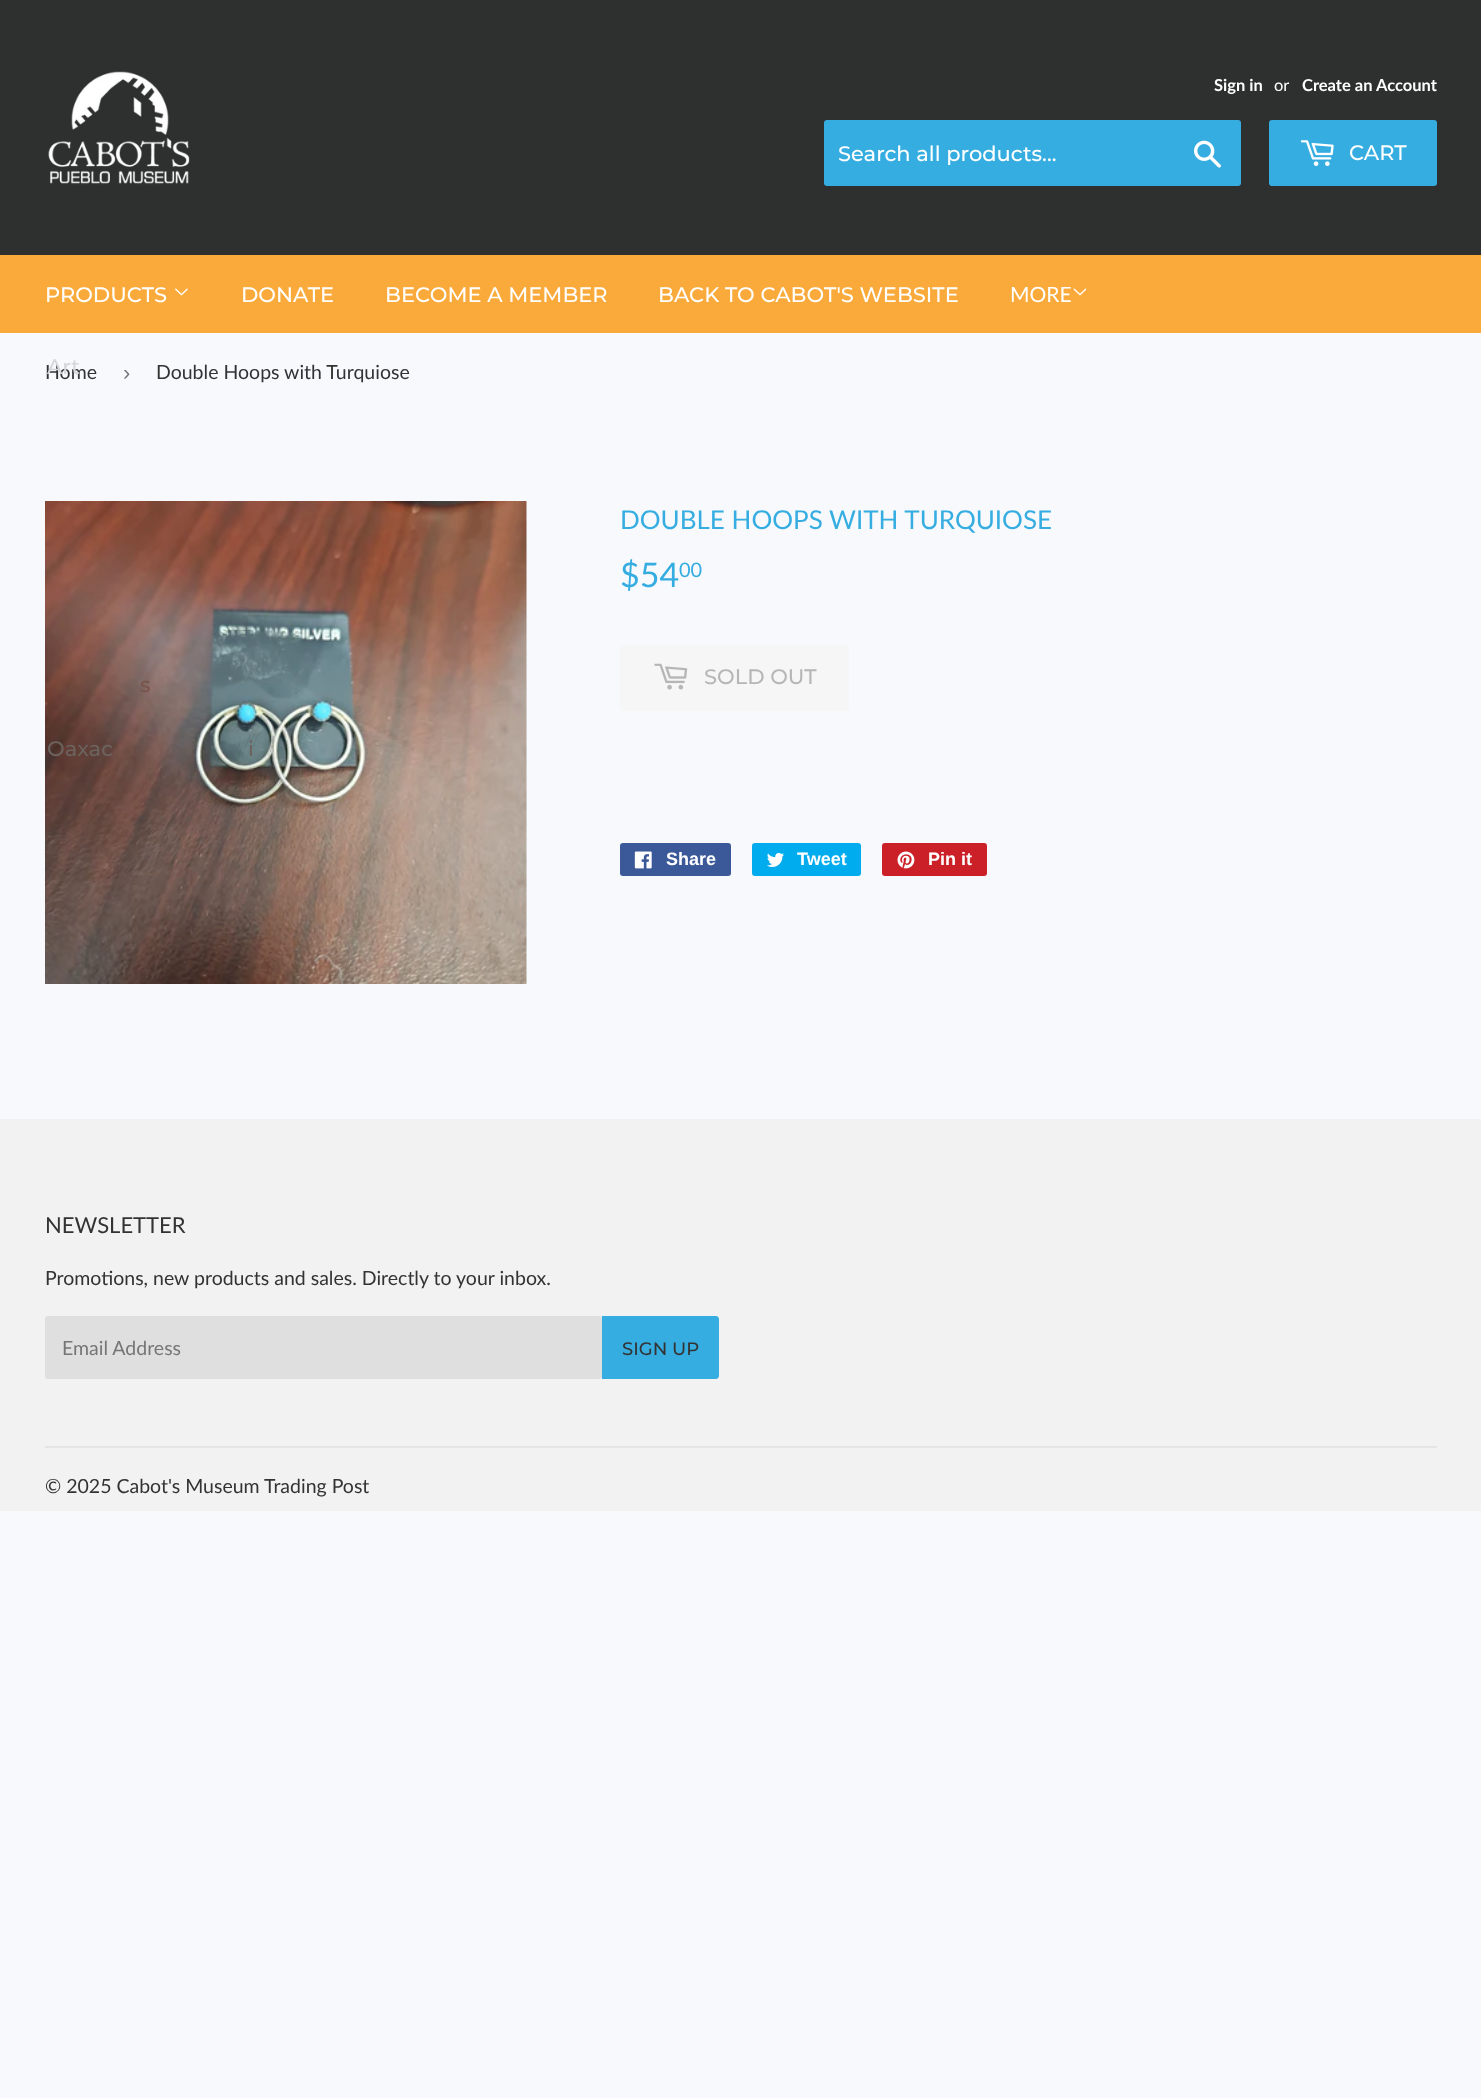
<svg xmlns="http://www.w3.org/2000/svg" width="1481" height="2098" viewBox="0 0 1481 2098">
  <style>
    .t1 { font: bold 16.5px Lato; fill: #fff; }
    .t2 { font: 16.5px Lato; fill: #fff; }
    .t3 { font: 500 21px Montserrat; fill: #fff; }
    .t4 { font: 19.5px Lato; fill: #333; }
    .t5 { font: 500 21px Montserrat; fill: #d5d7da; }
    .t6 { font: 500 21px Montserrat; fill: #78544b; }
    .t7 { font: 500 21px Montserrat; fill: #6c625e; }
    .t8 { font: 21px Lato; fill: #fff; }
    .t9 { font: 22px Liberation Sans; fill: #767676; }
    .t10 { font: 26px Lato; fill: #35ade1; }
    .t11 { font: 34px Lato; fill: #35ade1; }
    .t12 { font: 20px Lato; fill: #35ade1; }
    .t13 { font: 500 21px Montserrat; fill: #b6b6b6; }
    .t14 { font: bold 18px Liberation Sans; fill: #fff; }
    .t15 { font: 22px Lato; fill: #333; }
    .t16 { font: 19.5px Lato; fill: #767676; }
    .t17 { font: 500 18px Montserrat; fill: #333; }
  </style>
  <rect width="100%" height="100%" fill="#f7f9fd"/>
  <rect x="0" y="0" width="1481" height="255" fill="#2e2f2f"/>
  <image x="48" y="71" width="142" height="114" href="images/1.png"/>
  <text x="1214" y="91" class="t1">Sign in</text>
  <text x="1274" y="91" class="t2">or</text>
  <text x="1302" y="91" class="t1">Create an Account</text>
  <rect x="824" y="120" width="417" height="66" rx="3" fill="#35ade1"/>
  <text x="838" y="161" class="t3">Search all products...</text>
  <image x="1194" y="140" width="27" height="28" href="images/2.png"/>
  <rect x="1269" y="120" width="168" height="66" rx="3" fill="#35ade1"/>
  <image x="1300" y="140" width="34" height="26" href="images/3.png"/>
  <text x="1349" y="160" class="t3">CART</text>
  <rect x="0" y="255" width="1481" height="78" fill="#faaa3a"/>
  <text x="45" y="302" class="t3">PRODUCTS</text>
  <image x="175" y="288" width="13" height="8" href="images/4.png"/>
  <text x="45" y="379" class="t4">Home</text>
  <text x="47" y="374" class="t5">Art</text>
  <image x="45" y="501" width="482" height="483" href="images/6.png"/>
  <text x="140" y="692" class="t6">s</text>
  <text x="47" y="756" class="t7">Oaxac</text>
  <text x="248" y="756" class="t7">i</text>
  <text x="241" y="302" class="t3">DONATE</text>
  <text x="385" y="302" class="t3">BECOME A MEMBER</text>
  <text x="658" y="302" class="t3">BACK TO CABOT'S WEBSITE</text>
  <text x="1010" y="302" class="t8">MORE</text>
  <image x="1073" y="288" width="14" height="8" href="images/5.png"/>
  <text x="123" y="380" class="t9">›</text>
  <text x="156" y="379" class="t4">Double Hoops with Turquiose</text>
  <text x="620" y="529" class="t10">DOUBLE HOOPS WITH TURQUIOSE</text>
  <text x="620" y="587" class="t11">$54</text>
  <text x="679" y="577" class="t12">00</text>
  <rect x="620" y="645" width="229" height="66" rx="3" fill="#f6f6f6"/>
  <image x="654" y="663" width="34" height="27" href="images/7.png"/>
  <text x="704" y="684" class="t13">SOLD OUT</text>
  <rect x="620" y="843" width="111" height="33" rx="3" fill="#3b5998"/>
  <image x="634" y="851" width="18" height="18" href="images/8.png"/>
  <text x="666" y="865" class="t14">Share</text>
  <rect x="752" y="843" width="109" height="33" rx="3" fill="#00aced"/>
  <image x="767" y="852" width="17" height="15" href="images/9.png"/>
  <text x="797" y="865" class="t14">Tweet</text>
  <rect x="882" y="843" width="105" height="33" rx="3" fill="#cb2027"/>
  <image x="897" y="851" width="18" height="18" href="images/10.png"/>
  <text x="928" y="865" class="t14">Pin it</text>
  <rect x="0" y="1119" width="1481" height="392" fill="#f2f2f2"/>
  <text x="45" y="1233" class="t15">NEWSLETTER</text>
  <text x="45" y="1285" class="t4">Promotions, new products and sales. Directly to your inbox.</text>
  <rect x="45" y="1316" width="557" height="63" rx="3" fill="#dfdfdf"/>
  <text x="62" y="1355" class="t16">Email Address</text>
  <path d="M602 1316H716C717.5 1316 719 1317.5 719 1319V1376C719 1377.5 717.5 1379 716 1379H602Z" fill="#35ade1"/>
  <text x="622" y="1355" class="t17">SIGN UP</text>
  <rect x="45" y="1446" width="1392" height="2" fill="#e5e5e5"/>
  <text x="45" y="1493" class="t4">© 2025 Cabot's Museum Trading Post</text>
</svg>
